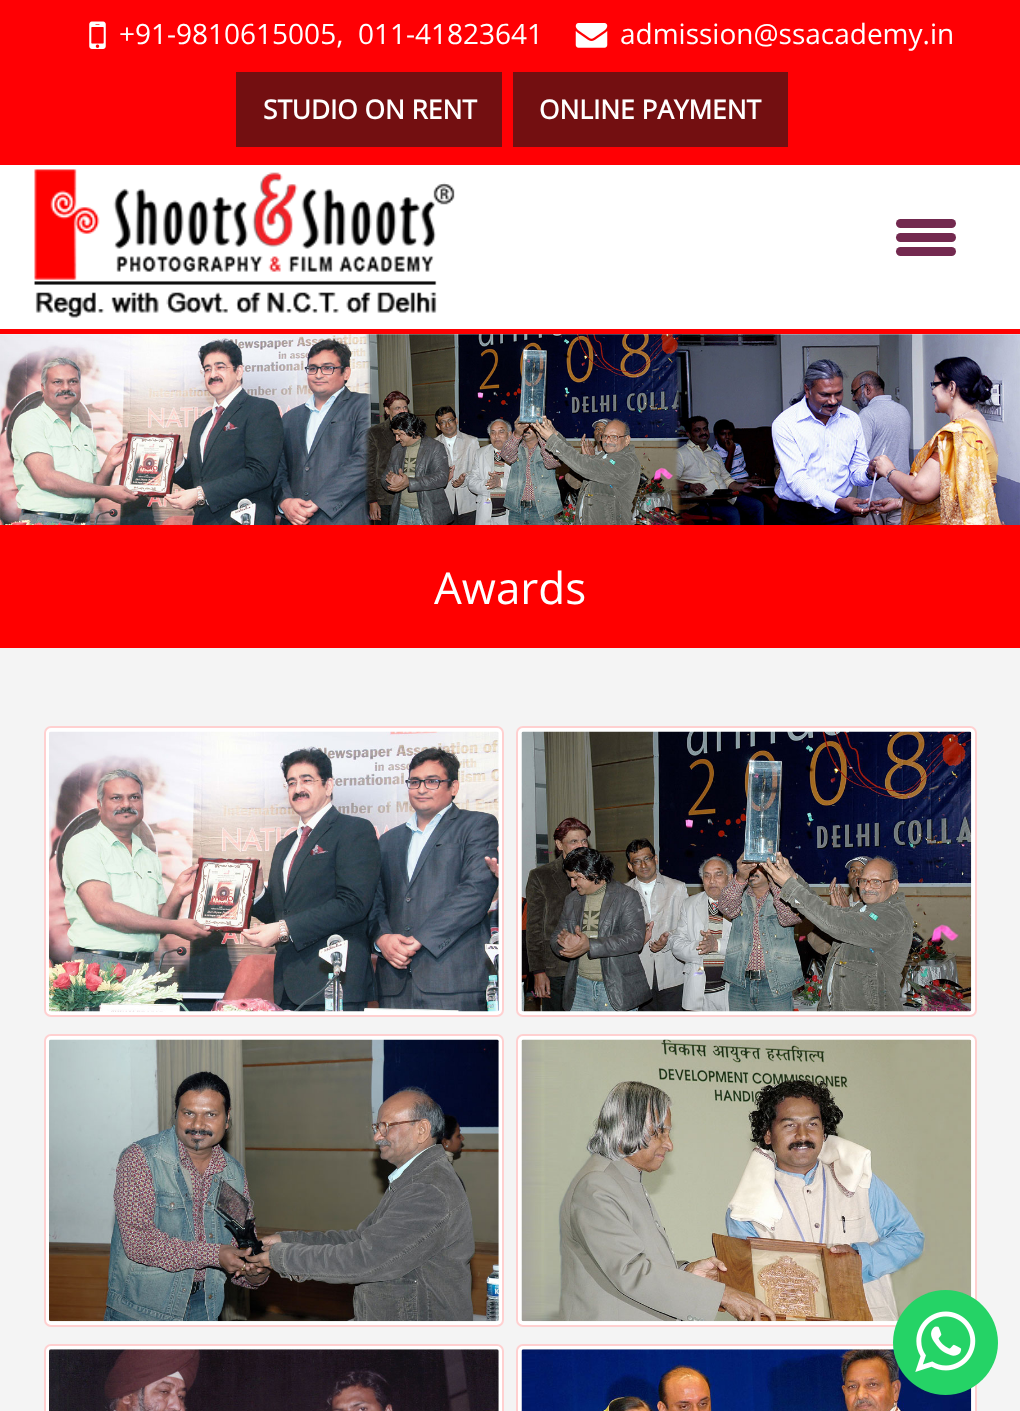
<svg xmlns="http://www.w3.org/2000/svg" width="1020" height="1411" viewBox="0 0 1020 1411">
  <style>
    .t1 { font: 28px Open Sans; fill: #fff; }
    .t2 { font: bold 26.25px Open Sans; fill: #fff; }
    .t3 { font: 44px Open Sans; fill: #fff; }
  </style>
  <rect width="100%" height="100%" fill="#fff"/>
  <rect x="0" y="0" width="1020" height="165" fill="#ff0004"/>
  <image x="89" y="21" width="17" height="28" href="images/1.png"/>
  <text x="119" y="44" class="t1">+91-9810615005,</text>
  <text x="358" y="44" class="t1">011-41823641</text>
  <image x="575" y="23" width="33" height="25" href="images/2.png"/>
  <text x="620" y="44" class="t1">admission@ssacademy.in</text>
  <rect x="236" y="72" width="266" height="75" fill="#730f11"/>
  <text x="263" y="119" class="t2">STUDIO ON RENT</text>
  <rect x="513" y="72" width="275" height="75" fill="#730f11"/>
  <text x="539" y="119" class="t2">ONLINE PAYMENT</text>
  <rect x="0" y="329" width="1020" height="5" fill="#f00"/>
  <image x="34" y="169" width="421" height="149" href="images/3.png"/>
  <rect x="896" y="219" width="60" height="9" rx="4.5" fill="#73294f"/>
  <rect x="896" y="233" width="60" height="9" rx="4.5" fill="#73294f"/>
  <rect x="896" y="247" width="60" height="9" rx="4.5" fill="#73294f"/>
  <image x="0" y="334" width="1020" height="191" href="images/4.png"/>
  <rect x="0" y="648" width="1020" height="763" fill="#f4f4f4"/>
  <rect x="0" y="525" width="1020" height="123" fill="#f00"/>
  <text x="434" y="604" class="t3">Awards</text>
  <rect x="45" y="727" width="458" height="289" rx="6" fill="#fff" stroke="#ffd0d0" stroke-width="2"/>
  <image x="49" y="731" width="450" height="281" href="images/5.png"/>
  <rect x="517" y="727" width="459" height="289" rx="6" fill="#fff" stroke="#ffd0d0" stroke-width="2"/>
  <image x="521" y="731" width="451" height="281" href="images/6.png"/>
  <rect x="45" y="1035" width="458" height="291" rx="6" fill="#fff" stroke="#ffd0d0" stroke-width="2"/>
  <image x="49" y="1039" width="450" height="283" href="images/7.png"/>
  <rect x="517" y="1035" width="459" height="291" rx="6" fill="#fff" stroke="#ffd0d0" stroke-width="2"/>
  <image x="521" y="1039" width="451" height="283" href="images/8.png"/>
  <rect x="45" y="1345" width="458" height="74" rx="6" fill="#fff" stroke="#ffd0d0" stroke-width="2"/>
  <image x="49" y="1349" width="450" height="62" href="images/9.png"/>
  <rect x="517" y="1345" width="459" height="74" rx="6" fill="#fff" stroke="#ffd0d0" stroke-width="2"/>
  <image x="521" y="1349" width="451" height="62" href="images/10.png"/>
  <circle cx="945.5" cy="1342.5" r="52.5" fill="#25d366"/>
  <image x="915" y="1311" width="61" height="61" href="images/11.png"/>
</svg>
